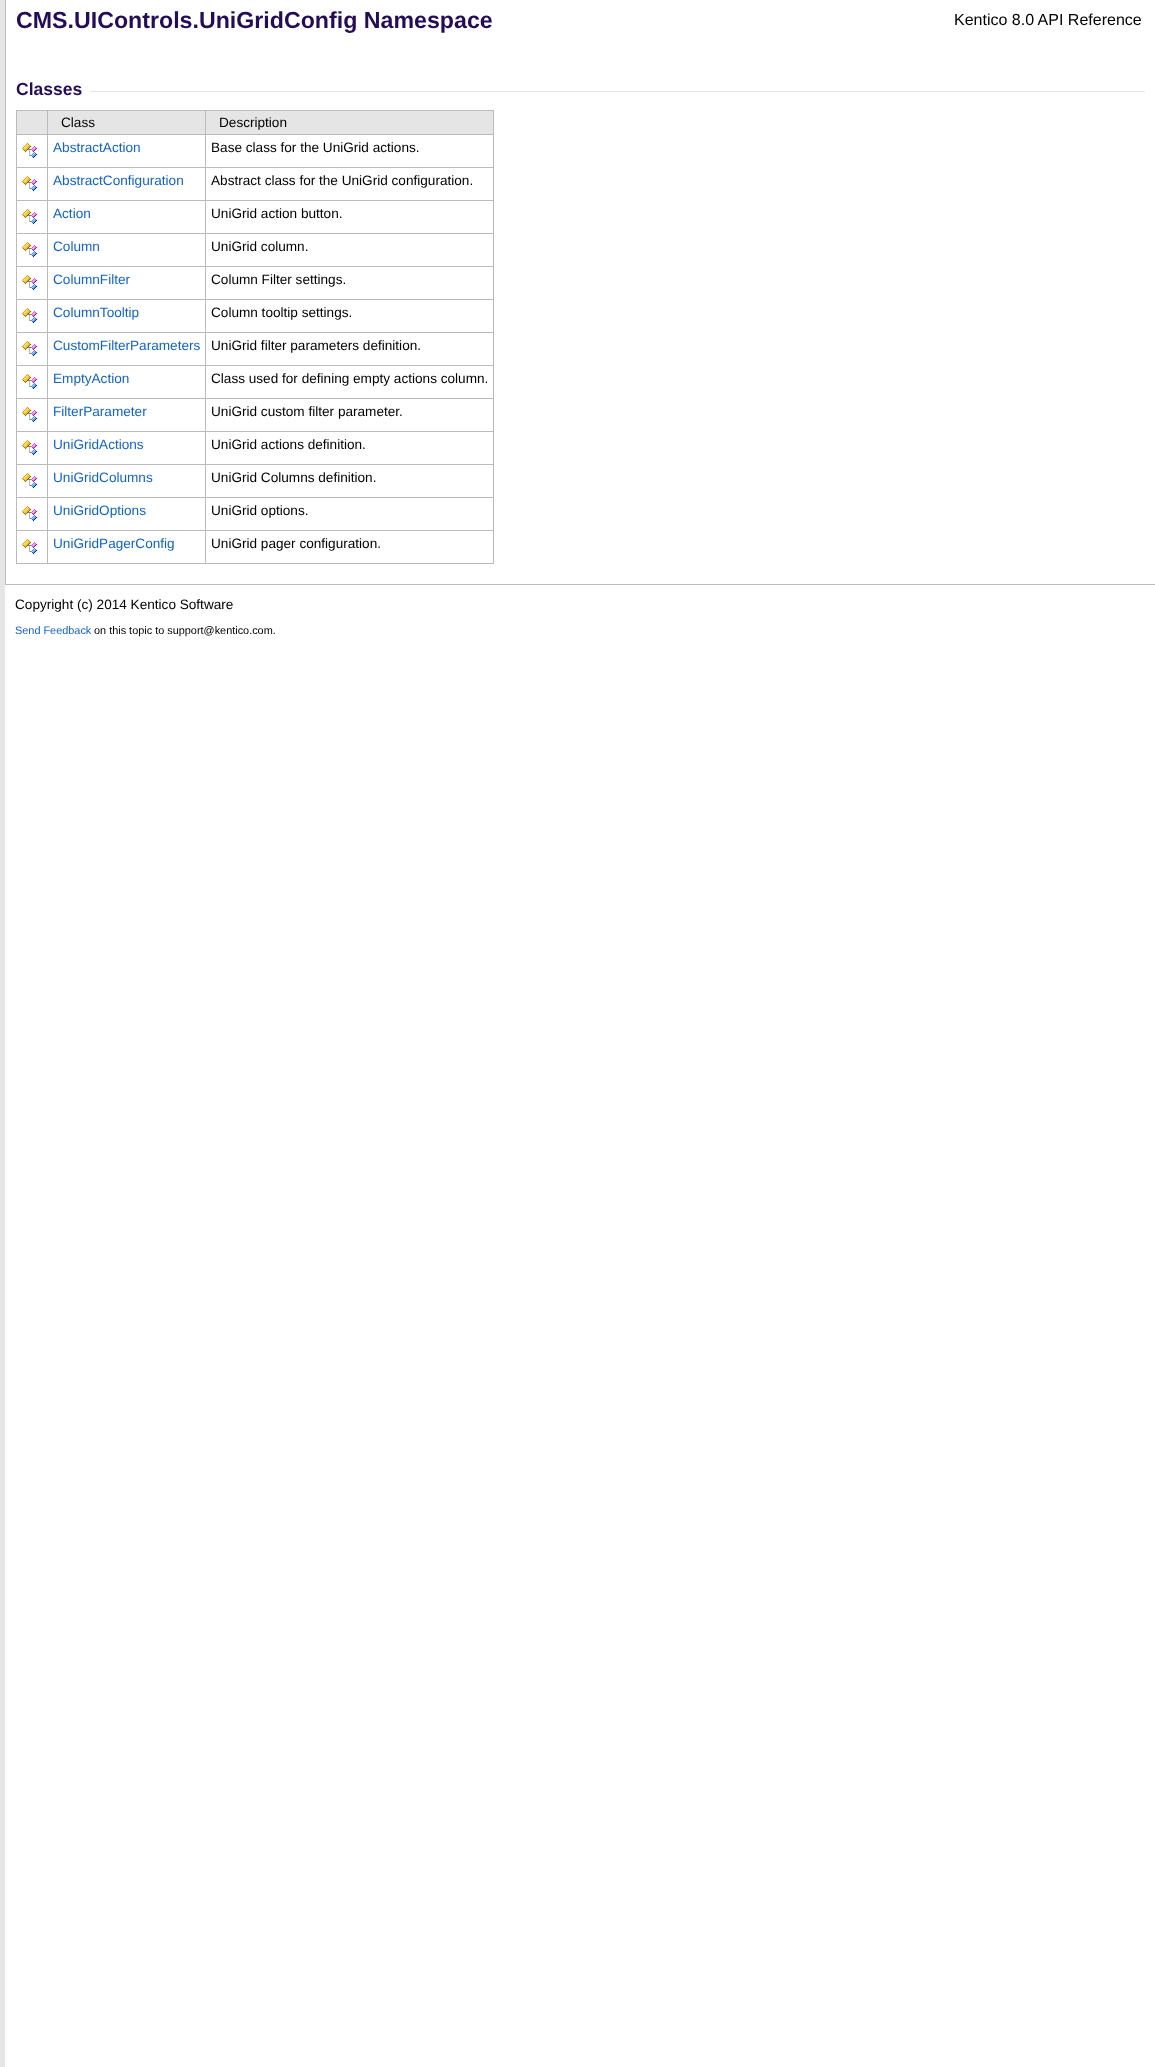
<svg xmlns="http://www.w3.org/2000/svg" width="1155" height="2067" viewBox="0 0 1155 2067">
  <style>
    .t1 { font: bold 23.2px Liberation Sans; fill: #250c58; }
    .t2 { font: 16px Liberation Sans; fill: #000; }
    .t3 { font: bold 17.5px Liberation Sans; fill: #250c58; }
    .t4 { font: 13.6px Liberation Sans; fill: #000; }
    .t5 { font: 13.6px Liberation Sans; fill: #1364c4; }
    .t6 { font: 10.9px Liberation Sans; fill: #1364c4; }
    .t7 { font: 10.9px Liberation Sans; fill: #000; }
  </style>
  <rect width="100%" height="100%" fill="#fff"/>
  <rect x="0" y="0" width="5" height="2067" fill="#e6e6e6"/>
  <rect x="5" y="0" width="1" height="584" fill="#bbb"/>
  <text x="16" y="28" class="t1">CMS.UIControls.UniGridConfig Namespace</text>
  <text x="954" y="25" class="t2">Kentico 8.0 API Reference</text>
  <text x="16" y="95" class="t3">Classes</text>
  <rect x="90" y="91" width="1055" height="1" fill="#e5e5e5"/>
  <rect x="16" y="110" width="478" height="1" fill="#bbb"/>
  <rect x="493" y="110" width="1" height="454" fill="#bbb"/>
  <rect x="16" y="563" width="478" height="1" fill="#bbb"/>
  <rect x="16" y="110" width="1" height="454" fill="#bbb"/>
  <rect x="17" y="111" width="30" height="23" fill="#e5e5e5"/>
  <rect x="48" y="111" width="157" height="23" fill="#e5e5e5"/>
  <rect x="205" y="134" width="289" height="1" fill="#bbb"/>
  <rect x="205" y="167" width="289" height="1" fill="#bbb"/>
  <rect x="205" y="200" width="289" height="1" fill="#bbb"/>
  <rect x="205" y="233" width="289" height="1" fill="#bbb"/>
  <rect x="205" y="266" width="289" height="1" fill="#bbb"/>
  <rect x="205" y="299" width="289" height="1" fill="#bbb"/>
  <rect x="205" y="332" width="289" height="1" fill="#bbb"/>
  <rect x="205" y="365" width="289" height="1" fill="#bbb"/>
  <rect x="205" y="398" width="289" height="1" fill="#bbb"/>
  <rect x="205" y="431" width="289" height="1" fill="#bbb"/>
  <rect x="205" y="464" width="289" height="1" fill="#bbb"/>
  <rect x="205" y="497" width="289" height="1" fill="#bbb"/>
  <rect x="205" y="530" width="289" height="1" fill="#bbb"/>
  <rect x="205" y="530" width="1" height="34" fill="#bbb"/>
  <rect x="47" y="530" width="159" height="1" fill="#bbb"/>
  <rect x="205" y="497" width="1" height="34" fill="#bbb"/>
  <rect x="47" y="497" width="159" height="1" fill="#bbb"/>
  <rect x="205" y="464" width="1" height="34" fill="#bbb"/>
  <rect x="47" y="464" width="159" height="1" fill="#bbb"/>
  <rect x="205" y="431" width="1" height="34" fill="#bbb"/>
  <rect x="47" y="431" width="159" height="1" fill="#bbb"/>
  <rect x="205" y="398" width="1" height="34" fill="#bbb"/>
  <rect x="47" y="398" width="159" height="1" fill="#bbb"/>
  <rect x="205" y="365" width="1" height="34" fill="#bbb"/>
  <rect x="47" y="365" width="159" height="1" fill="#bbb"/>
  <rect x="205" y="332" width="1" height="34" fill="#bbb"/>
  <rect x="47" y="332" width="159" height="1" fill="#bbb"/>
  <rect x="205" y="299" width="1" height="34" fill="#bbb"/>
  <rect x="47" y="299" width="159" height="1" fill="#bbb"/>
  <rect x="205" y="266" width="1" height="34" fill="#bbb"/>
  <rect x="47" y="266" width="159" height="1" fill="#bbb"/>
  <rect x="205" y="233" width="1" height="34" fill="#bbb"/>
  <rect x="47" y="233" width="159" height="1" fill="#bbb"/>
  <rect x="205" y="200" width="1" height="34" fill="#bbb"/>
  <rect x="47" y="200" width="159" height="1" fill="#bbb"/>
  <rect x="205" y="167" width="1" height="34" fill="#bbb"/>
  <rect x="47" y="167" width="159" height="1" fill="#bbb"/>
  <rect x="205" y="134" width="1" height="34" fill="#bbb"/>
  <rect x="47" y="134" width="159" height="1" fill="#bbb"/>
  <rect x="47" y="530" width="1" height="34" fill="#bbb"/>
  <rect x="16" y="530" width="32" height="1" fill="#bbb"/>
  <rect x="47" y="497" width="1" height="34" fill="#bbb"/>
  <rect x="16" y="497" width="32" height="1" fill="#bbb"/>
  <rect x="47" y="464" width="1" height="34" fill="#bbb"/>
  <rect x="16" y="464" width="32" height="1" fill="#bbb"/>
  <rect x="47" y="431" width="1" height="34" fill="#bbb"/>
  <rect x="16" y="431" width="32" height="1" fill="#bbb"/>
  <rect x="47" y="398" width="1" height="34" fill="#bbb"/>
  <rect x="16" y="398" width="32" height="1" fill="#bbb"/>
  <rect x="47" y="365" width="1" height="34" fill="#bbb"/>
  <rect x="16" y="365" width="32" height="1" fill="#bbb"/>
  <rect x="47" y="332" width="1" height="34" fill="#bbb"/>
  <rect x="16" y="332" width="32" height="1" fill="#bbb"/>
  <rect x="47" y="299" width="1" height="34" fill="#bbb"/>
  <rect x="16" y="299" width="32" height="1" fill="#bbb"/>
  <rect x="47" y="266" width="1" height="34" fill="#bbb"/>
  <rect x="16" y="266" width="32" height="1" fill="#bbb"/>
  <rect x="47" y="233" width="1" height="34" fill="#bbb"/>
  <rect x="16" y="233" width="32" height="1" fill="#bbb"/>
  <rect x="47" y="200" width="1" height="34" fill="#bbb"/>
  <rect x="16" y="200" width="32" height="1" fill="#bbb"/>
  <rect x="47" y="167" width="1" height="34" fill="#bbb"/>
  <rect x="16" y="167" width="32" height="1" fill="#bbb"/>
  <rect x="47" y="134" width="1" height="34" fill="#bbb"/>
  <rect x="16" y="134" width="32" height="1" fill="#bbb"/>
  <rect x="47" y="110" width="1" height="25" fill="#bbb"/>
  <text x="61" y="127" class="t4">Class</text>
  <rect x="206" y="111" width="287" height="23" fill="#e5e5e5"/>
  <rect x="205" y="110" width="1" height="25" fill="#bbb"/>
  <text x="219" y="127" class="t4">Description</text>
  <image x="22" y="143" width="16" height="16" href="images/1.png"/>
  <text x="53" y="152" class="t5">AbstractAction</text>
  <text x="211" y="152" class="t4">Base class for the UniGrid actions.</text>
  <image x="22" y="176" width="16" height="16" href="images/1.png"/>
  <text x="53" y="185" class="t5">AbstractConfiguration</text>
  <text x="211" y="185" class="t4">Abstract class for the UniGrid configuration.</text>
  <image x="22" y="209" width="16" height="16" href="images/1.png"/>
  <text x="53" y="218" class="t5">Action</text>
  <text x="211" y="218" class="t4">UniGrid action button.</text>
  <image x="22" y="242" width="16" height="16" href="images/1.png"/>
  <text x="53" y="251" class="t5">Column</text>
  <text x="211" y="251" class="t4">UniGrid column.</text>
  <image x="22" y="275" width="16" height="16" href="images/1.png"/>
  <text x="53" y="284" class="t5">ColumnFilter</text>
  <text x="211" y="284" class="t4">Column Filter settings.</text>
  <image x="22" y="308" width="16" height="16" href="images/1.png"/>
  <text x="53" y="317" class="t5">ColumnTooltip</text>
  <text x="211" y="317" class="t4">Column tooltip settings.</text>
  <image x="22" y="341" width="16" height="16" href="images/1.png"/>
  <text x="53" y="350" class="t5">CustomFilterParameters</text>
  <text x="211" y="350" class="t4">UniGrid filter parameters definition.</text>
  <image x="22" y="374" width="16" height="16" href="images/1.png"/>
  <text x="53" y="383" class="t5">EmptyAction</text>
  <text x="211" y="383" class="t4">Class used for defining empty actions column.</text>
  <image x="22" y="407" width="16" height="16" href="images/1.png"/>
  <text x="53" y="416" class="t5">FilterParameter</text>
  <text x="211" y="416" class="t4">UniGrid custom filter parameter.</text>
  <image x="22" y="440" width="16" height="16" href="images/1.png"/>
  <text x="53" y="449" class="t5">UniGridActions</text>
  <text x="211" y="449" class="t4">UniGrid actions definition.</text>
  <image x="22" y="473" width="16" height="16" href="images/1.png"/>
  <text x="53" y="482" class="t5">UniGridColumns</text>
  <text x="211" y="482" class="t4">UniGrid Columns definition.</text>
  <image x="22" y="506" width="16" height="16" href="images/1.png"/>
  <text x="53" y="515" class="t5">UniGridOptions</text>
  <text x="211" y="515" class="t4">UniGrid options.</text>
  <image x="22" y="539" width="16" height="16" href="images/1.png"/>
  <text x="53" y="548" class="t5">UniGridPagerConfig</text>
  <text x="211" y="548" class="t4">UniGrid pager configuration.</text>
  <rect x="5" y="584" width="1150" height="1" fill="#bbb"/>
  <text x="15" y="609" class="t4">Copyright (c) 2014 Kentico Software</text>
  <text x="15" y="634" class="t6">Send Feedback</text>
  <text x="94" y="634" class="t7">on this topic to support@kentico.com.</text>
</svg>
